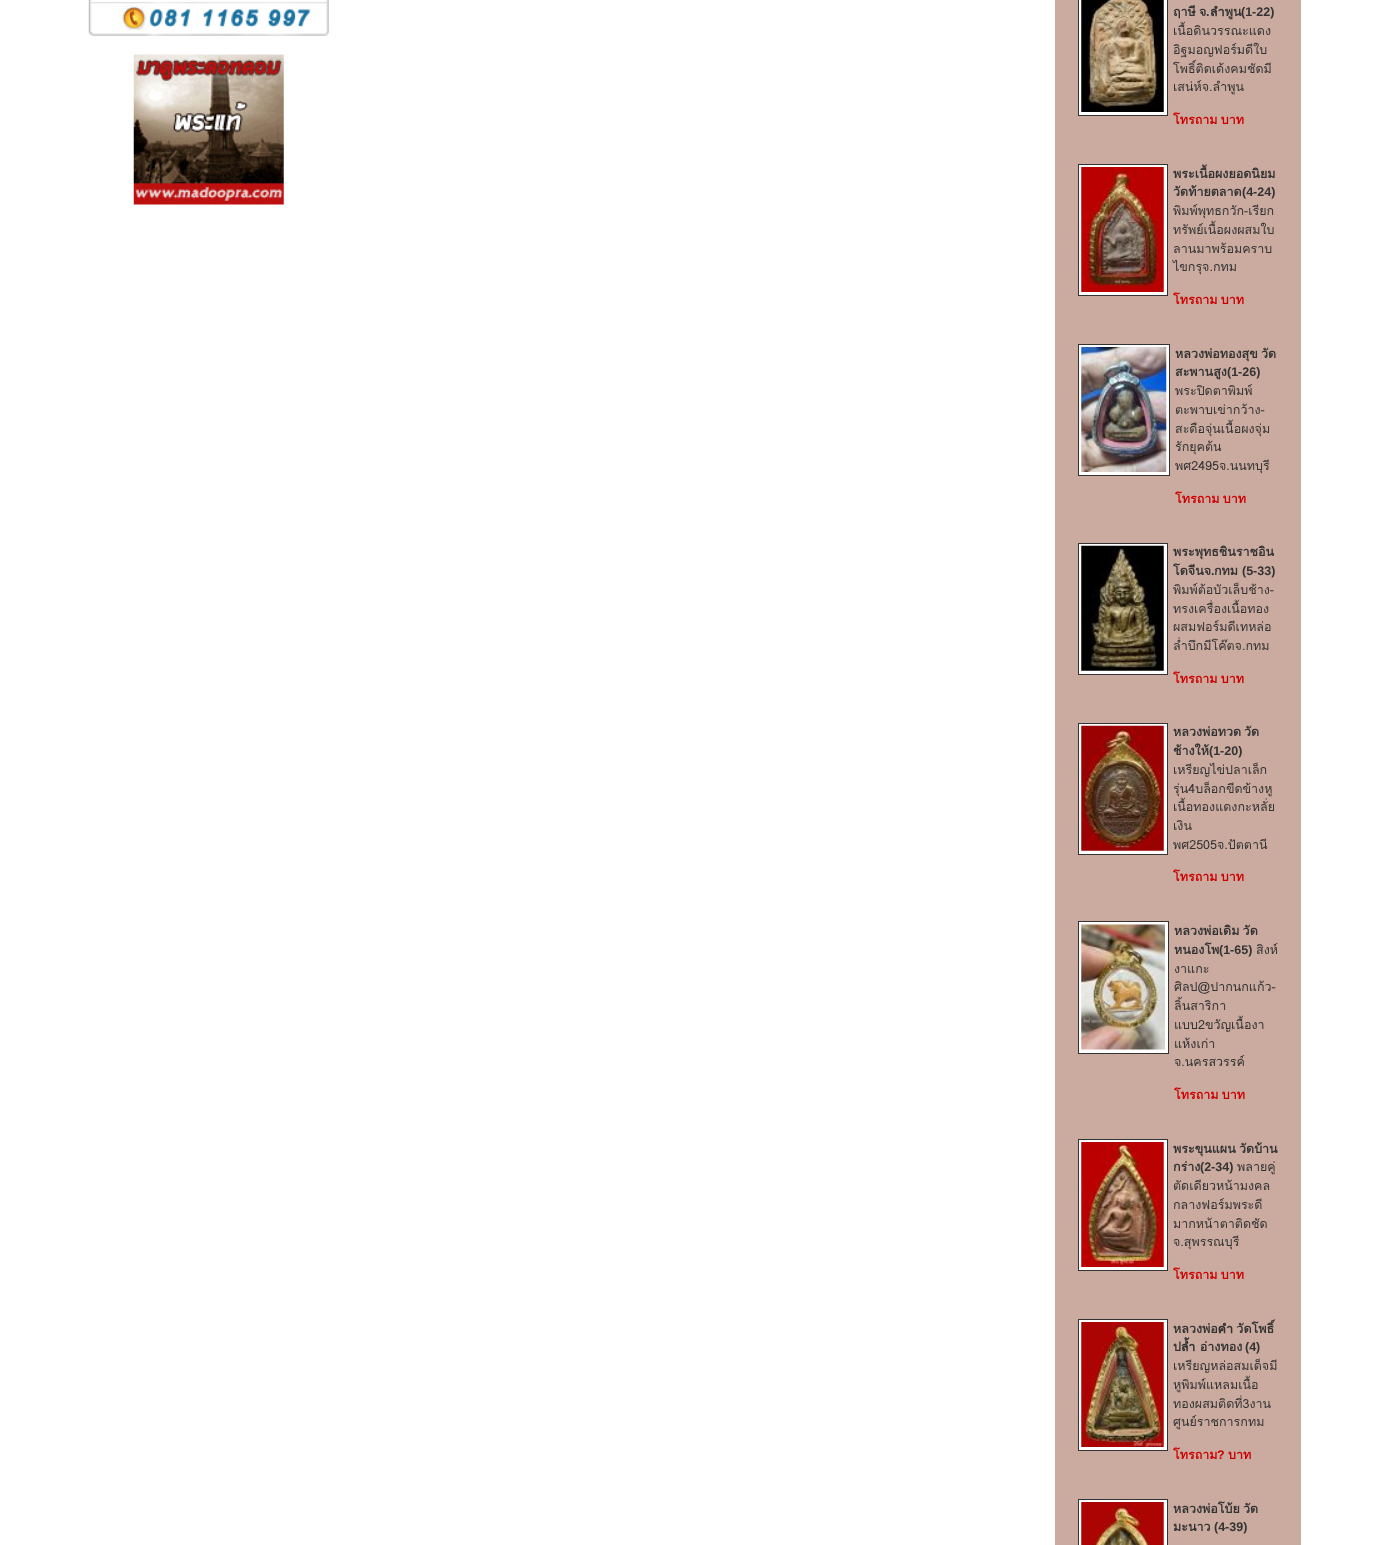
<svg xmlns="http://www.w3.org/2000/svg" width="1390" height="1545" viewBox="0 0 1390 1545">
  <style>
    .t1 { font: bold 12.5px Loma; fill: #333; }
    .t2 { font: bold 12.5px Liberation Sans; fill: #333; }
    .t3 { font: 12.5px Loma; fill: #333; }
    .t4 { font: bold 12.5px Loma; fill: #c00; }
    .t5 { font: bold 12.5px Liberation Sans; fill: #c00; }
  </style>
  <rect width="100%" height="100%" fill="#fff"/>
  <image x="88" y="0" width="241" height="36" href="images/1.png"/>
  <image x="133" y="54" width="151" height="151" href="images/2.png"/>
  <rect x="1055" y="0" width="246" height="1545" fill="#cbaba0"/>
  <rect x="1078.5" y="-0.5" width="89" height="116" fill="#fff" stroke="#333"/>
  <image x="1081" y="0" width="83" height="112" href="images/3.png"/>
  <text x="1173" y="16" word-spacing="-1" class="t1">ฤาษี จ</text>
  <text x="1206" y="16" class="t2">.</text>
  <text x="1210" y="16" class="t1">ลำพูน</text>
  <text x="1241" y="16" class="t2">(1-22)</text>
  <text x="1173" y="35" class="t3">เนื้อดินวรรณะแดง</text>
  <text x="1173" y="54" class="t3">อิฐมอญฟอร์มดีใบ</text>
  <text x="1173" y="73" class="t3">โพธิ์ติดเด้งคมชัดมี</text>
  <text x="1173" y="91" class="t3">เสน่ห์จ.ลำพูน</text>
  <text x="1173" y="124" word-spacing="-1" class="t4">โทรถาม บาท</text>
  <rect x="1078.5" y="164.5" width="89" height="131" fill="#fff" stroke="#333"/>
  <image x="1081" y="167" width="83" height="125" href="images/4.png"/>
  <text x="1173" y="178" class="t1">พระเนื้อผงยอดนิยม</text>
  <text x="1173" y="196" class="t1">วัดท้ายตลาด</text>
  <text x="1242" y="196" class="t2">(4-24)</text>
  <text x="1173" y="215" class="t3">พิมพ์พุทธกวัก-เรียก</text>
  <text x="1173" y="234" class="t3">ทรัพย์เนื้อผงผสมใบ</text>
  <text x="1173" y="253" class="t3">ลานมาพร้อมคราบ</text>
  <text x="1173" y="271" class="t3">ไขกรุจ.กทม</text>
  <text x="1173" y="304" word-spacing="-1" class="t4">โทรถาม บาท</text>
  <rect x="1078.5" y="344.5" width="91" height="131" fill="#fff" stroke="#333"/>
  <image x="1081" y="347" width="86" height="125" href="images/5.png"/>
  <text x="1175" y="358" word-spacing="-1" class="t1">หลวงพ่อทองสุข วัด</text>
  <text x="1175" y="376" class="t1">สะพานสูง</text>
  <text x="1227" y="376" class="t2">(1-26)</text>
  <text x="1175" y="395" class="t3">พระปิดตาพิมพ์</text>
  <text x="1175" y="414" class="t3">ตะพาบเข่ากว้าง-</text>
  <text x="1175" y="433" class="t3">สะดือจุ่นเนื้อผงจุ่ม</text>
  <text x="1175" y="451" class="t3">รักยุคต้น</text>
  <text x="1175" y="470" class="t3">พศ2495จ.นนทบุรี</text>
  <text x="1175" y="503" word-spacing="-1" class="t4">โทรถาม บาท</text>
  <rect x="1078.5" y="543.5" width="89" height="131" fill="#fff" stroke="#333"/>
  <image x="1081" y="545" width="83" height="126" href="images/6.png"/>
  <text x="1173" y="556" class="t1">พระพุทธชินราชอิน</text>
  <text x="1173" y="575" class="t1">โดจีนจ</text>
  <text x="1211" y="575" class="t2">.</text>
  <text x="1214" y="575" class="t1">กทม</text>
  <text x="1242" y="575" class="t2">(5-33)</text>
  <text x="1173" y="594" class="t3">พิมพ์ต้อบัวเล็บช้าง-</text>
  <text x="1173" y="613" class="t3">ทรงเครื่องเนื้อทอง</text>
  <text x="1173" y="631" class="t3">ผสมฟอร์มดีเทหล่อ</text>
  <text x="1173" y="650" class="t3">ล่ำบึกมีโค๊ตจ.กทม</text>
  <text x="1173" y="683" word-spacing="-1" class="t4">โทรถาม บาท</text>
  <rect x="1078.5" y="723.5" width="89" height="131" fill="#fff" stroke="#333"/>
  <image x="1081" y="725" width="83" height="126" href="images/7.png"/>
  <text x="1173" y="736" class="t1">หลวงพ่อทวด</text>
  <text x="1244" y="736" class="t1">วัด</text>
  <text x="1173" y="755" class="t1">ช้างให้</text>
  <text x="1209" y="755" class="t2">(1-20)</text>
  <text x="1173" y="774" class="t3">เหรียญไข่ปลาเล็ก</text>
  <text x="1173" y="793" class="t3">รุ่น4บล็อกขีดข้างหู</text>
  <text x="1173" y="811" class="t3">เนื้อทองแดงกะหลั่ย</text>
  <text x="1173" y="830" class="t3">เงิน</text>
  <text x="1173" y="849" class="t3">พศ2505จ.ปัตตานี</text>
  <text x="1173" y="881" word-spacing="-1" class="t4">โทรถาม บาท</text>
  <rect x="1078.5" y="921.5" width="90" height="132" fill="#fff" stroke="#333"/>
  <image x="1081" y="924" width="84" height="126" href="images/8.png"/>
  <text x="1174" y="935" word-spacing="-1" class="t1">หลวงพ่อเดิม วัด</text>
  <text x="1174" y="954" class="t1">หนองโพ</text>
  <text x="1219" y="954" class="t2">(1-65)</text>
  <text x="1256" y="954" class="t3">สิงห์</text>
  <text x="1174" y="973" class="t3">งาแกะ</text>
  <text x="1174" y="991" class="t3">ศิลป@ปากนกแก้ว-</text>
  <text x="1174" y="1010" class="t3">ลิ้นสาริกา</text>
  <text x="1174" y="1029" class="t3">แบบ2ขวัญเนื้องา</text>
  <text x="1174" y="1048" class="t3">แห้งเก่า</text>
  <text x="1174" y="1066" class="t3">จ.นครสวรรค์</text>
  <text x="1174" y="1099" word-spacing="-1" class="t4">โทรถาม บาท</text>
  <rect x="1078.5" y="1139.5" width="89" height="131" fill="#fff" stroke="#333"/>
  <image x="1081" y="1142" width="83" height="125" href="images/9.png"/>
  <text x="1173" y="1153" class="t1">พระขุนแผน</text>
  <text x="1239" y="1153" class="t1">วัดบ้าน</text>
  <text x="1173" y="1171" class="t1">กร่าง</text>
  <text x="1200" y="1171" class="t2">(2-34)</text>
  <text x="1237" y="1171" class="t3">พลายคู่</text>
  <text x="1173" y="1190" class="t3">ตัดเดียวหน้ามงคล</text>
  <text x="1173" y="1209" class="t3">กลางฟอร์มพระดี</text>
  <text x="1173" y="1228" class="t3">มากหน้าตาติดชัด</text>
  <text x="1173" y="1246" class="t3">จ.สุพรรณบุรี</text>
  <text x="1173" y="1279" word-spacing="-1" class="t4">โทรถาม บาท</text>
  <rect x="1078.5" y="1319.5" width="89" height="131" fill="#fff" stroke="#333"/>
  <image x="1081" y="1322" width="83" height="125" href="images/10.png"/>
  <text x="1173" y="1333" word-spacing="-1" class="t1">หลวงพ่อคำ วัดโพธิ์</text>
  <text x="1173" y="1351" class="t1">ปล้ำ อ่างทอง</text>
  <text x="1245" y="1351" class="t2">(4)</text>
  <text x="1173" y="1370" class="t3">เหรียญหล่อสมเด็จมี</text>
  <text x="1173" y="1389" class="t3">หูพิมพ์แหลมเนื้อ</text>
  <text x="1173" y="1408" class="t3">ทองผสมติดที่3งาน</text>
  <text x="1173" y="1426" class="t3">ศูนย์ราชการกทม</text>
  <text x="1173" y="1459" class="t4">โทรถาม</text>
  <text x="1217" y="1459" class="t5">?</text>
  <text x="1228" y="1459" class="t4">บาท</text>
  <rect x="1078.5" y="1499.5" width="89" height="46" fill="#fff" stroke="#333"/>
  <image x="1081" y="1502" width="83" height="43" href="images/11.png"/>
  <text x="1173" y="1513" word-spacing="-1" class="t1">หลวงพ่อโบ้ย วัด</text>
  <text x="1173" y="1531" class="t1">มะนาว</text>
  <text x="1214" y="1531" class="t2">(4-39)</text>
</svg>
